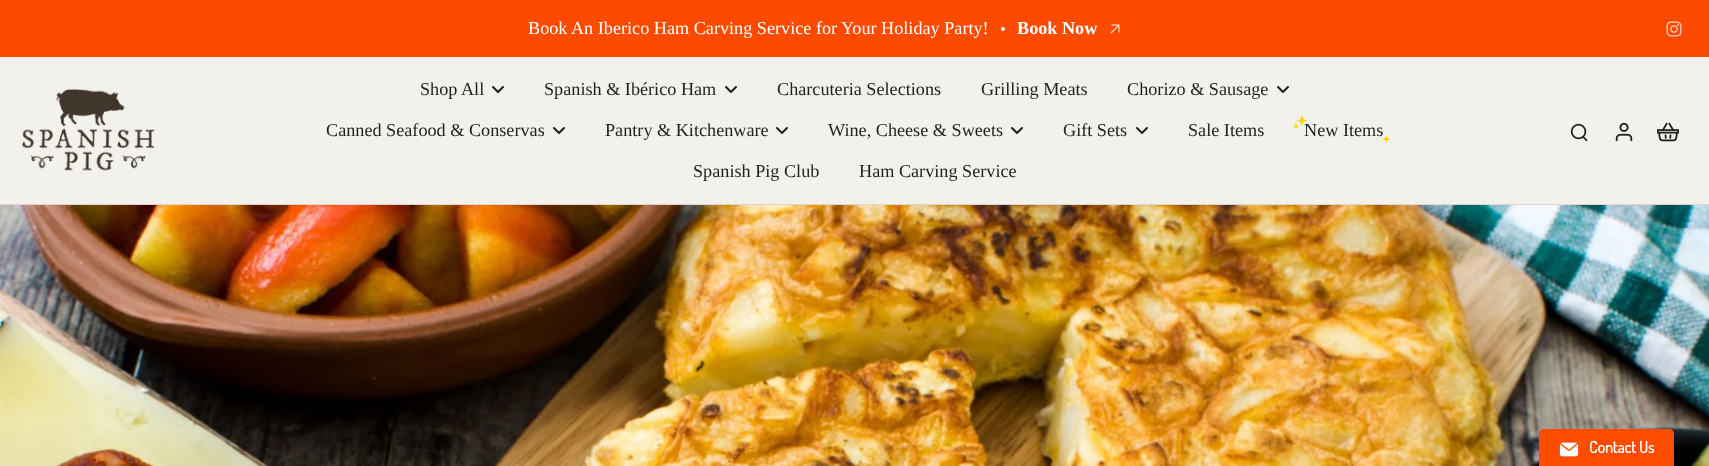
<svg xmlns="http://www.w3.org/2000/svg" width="1709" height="466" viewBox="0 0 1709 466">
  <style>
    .t1 { font: 18.2px Liberation Serif; fill: #fff; }
    .t2 { font: bold 18.2px Liberation Serif; fill: #fff; }
    .t3 { font: 18.2px Liberation Serif; fill: #211e1e; }
    .t4 { font: bold 16px Dosis; fill: #fff; }
  </style>
  <rect width="100%" height="100%" fill="#f2f1ec"/>
  <rect x="0" y="0" width="1709" height="57" fill="#fc4b00"/>
  <text x="528" y="34" class="t1">Book An Iberico Ham Carving Service for Your Holiday Party!</text>
  <circle cx="1003" cy="29" r="2" fill="#fafafa"/>
  <text x="1017" y="34" class="t2">Book Now</text>
  <image x="1110" y="24" width="10" height="10" href="images/1.png"/>
  <image x="1666" y="21" width="16" height="16" href="images/2.png"/>
  <image x="22" y="89" width="133" height="82" href="images/3.png"/>
  <text x="420" y="95" class="t3">Shop All</text>
  <path d="M493 87L498 92L503 87" fill="none" stroke="#211e1e" stroke-width="2" stroke-linecap="round" stroke-linejoin="round"/>
  <text x="544" y="95" class="t3">Spanish &amp; Ibérico Ham</text>
  <path d="M726 87L731 92L736 87" fill="none" stroke="#211e1e" stroke-width="2" stroke-linecap="round" stroke-linejoin="round"/>
  <text x="777" y="95" class="t3">Charcuteria Selections</text>
  <text x="981" y="95" class="t3">Grilling Meats</text>
  <text x="1127" y="95" class="t3">Chorizo &amp; Sausage</text>
  <path d="M1278 87L1283 92L1288 87" fill="none" stroke="#211e1e" stroke-width="2" stroke-linecap="round" stroke-linejoin="round"/>
  <text x="326" y="136" class="t3">Canned Seafood &amp; Conservas</text>
  <path d="M554 128L559 133L564 128" fill="none" stroke="#211e1e" stroke-width="2" stroke-linecap="round" stroke-linejoin="round"/>
  <text x="605" y="136" class="t3">Pantry &amp; Kitchenware</text>
  <path d="M777 128L782 133L787 128" fill="none" stroke="#211e1e" stroke-width="2" stroke-linecap="round" stroke-linejoin="round"/>
  <text x="828" y="136" class="t3">Wine, Cheese &amp; Sweets</text>
  <path d="M1012 128L1017 133L1022 128" fill="none" stroke="#211e1e" stroke-width="2" stroke-linecap="round" stroke-linejoin="round"/>
  <text x="1063" y="136" class="t3">Gift Sets</text>
  <path d="M1137 128L1142 133L1147 128" fill="none" stroke="#211e1e" stroke-width="2" stroke-linecap="round" stroke-linejoin="round"/>
  <text x="1188" y="136" class="t3">Sale Items</text>
  <text x="1304" y="136" class="t3">New Items</text>
  <image x="1296" y="114" width="12" height="12" href="images/4.png"/>
  <image x="1292" y="122" width="8" height="8" href="images/5.png"/>
  <image x="1382" y="134" width="9" height="9" href="images/6.png"/>
  <text x="693" y="177" class="t3">Spanish Pig Club</text>
  <text x="859" y="177" class="t3">Ham Carving Service</text>
  <image x="1570" y="123" width="18" height="19" href="images/7.png"/>
  <image x="1615" y="122" width="18" height="20" href="images/8.png"/>
  <image x="1657" y="122" width="22" height="20" href="images/9.png"/>
  <rect x="0" y="204" width="1709" height="1" fill="#ded5cd"/>
  <image x="0" y="205" width="1709" height="261" href="images/10.png"/>
  <path d="M1544 429H1669C1672 429 1674 431 1674 434V466H1539V434C1539 431 1541 429 1544 429Z" fill="#fb4c00"/>
  <image x="1559" y="442" width="20" height="15" href="images/11.png"/>
  <text x="1589" y="453" class="t4">Contact Us</text>
</svg>
